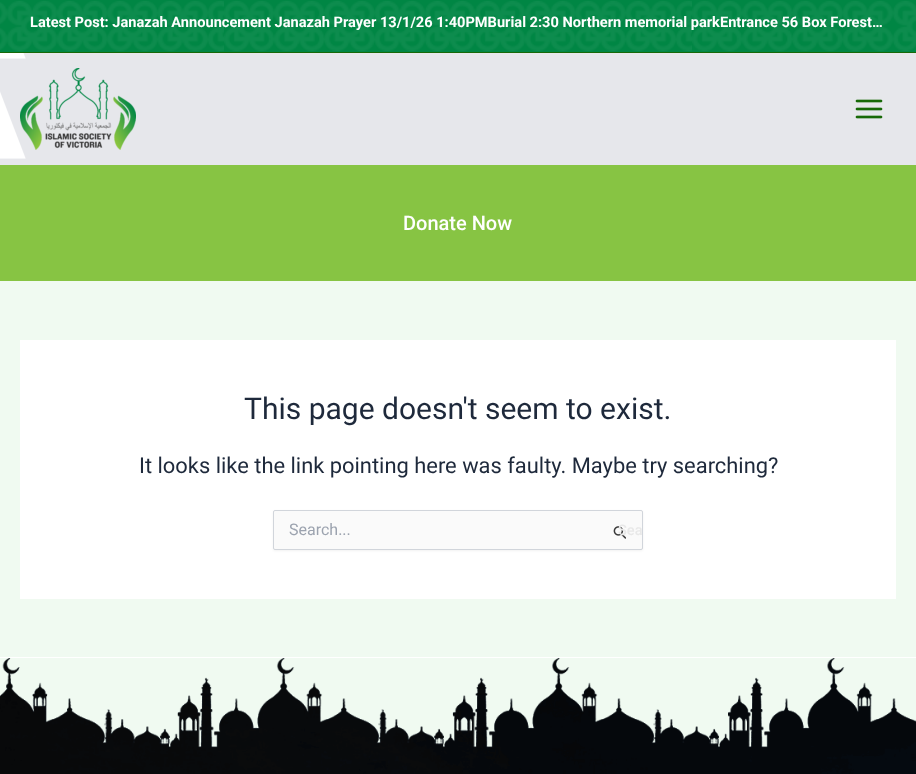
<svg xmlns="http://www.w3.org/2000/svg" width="916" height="774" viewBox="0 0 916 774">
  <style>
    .t1 { font: bold 14.6px Roboto; fill: #fff; }
    .t2 { font: 500 20px Roboto; fill: #fff; }
    .t3 { font: 30px Roboto; fill: #1e293b; }
    .t4 { font: 21.9px Roboto; fill: #1e293b; }
    .t5 { font: 16px Roboto; fill: #9ca3af; }
    .t6 { font: 500 14.6px Roboto; fill: #e8e8e8; }
  </style>
  <rect width="100%" height="100%" fill="#f0faf1"/>
  <image x="0" y="0" width="916" height="52" href="images/1.png"/>
  <rect x="0" y="52" width="916" height="1" fill="#176907"/>
  <text x="30" y="27" class="t1">Latest Post: Janazah Announcement Janazah Prayer 13/1/26 1:40PMBurial 2:30 Northern memorial parkEntrance 56 Box Forest…</text>
  <image x="0" y="53" width="916" height="112" href="images/2.png"/>
  <image x="20" y="68" width="116" height="82" href="images/3.png"/>
  <image x="855" y="99" width="28" height="20" href="images/4.png"/>
  <rect x="0" y="165" width="916" height="116" fill="#87c443"/>
  <text x="403" y="230" class="t2">Donate Now</text>
  <rect x="20" y="340" width="876" height="259" fill="#fff"/>
  <text x="244" y="419" class="t3">This page doesn't seem to exist.</text>
  <text x="139" y="473" class="t4">It looks like the link pointing here was faulty. Maybe try searching?</text>
  <rect x="273" y="511" width="370" height="40" rx="2" fill="#0000000d" filter="blur(1px)"/>
  <rect x="273.5" y="510.5" width="369" height="39" rx="1.5" fill="#fafafa" stroke="#d1d5db"/>
  <text x="289" y="535" class="t5">Search...</text>
  <image x="613" y="526" width="13" height="13" href="images/5.png"/>
  <text x="618" y="535" class="t6">Sea</text>
  <image x="0" y="658" width="916" height="116" href="images/6.png"/>
  <rect x="0" y="657" width="916" height="1" fill="#fff"/>
</svg>
